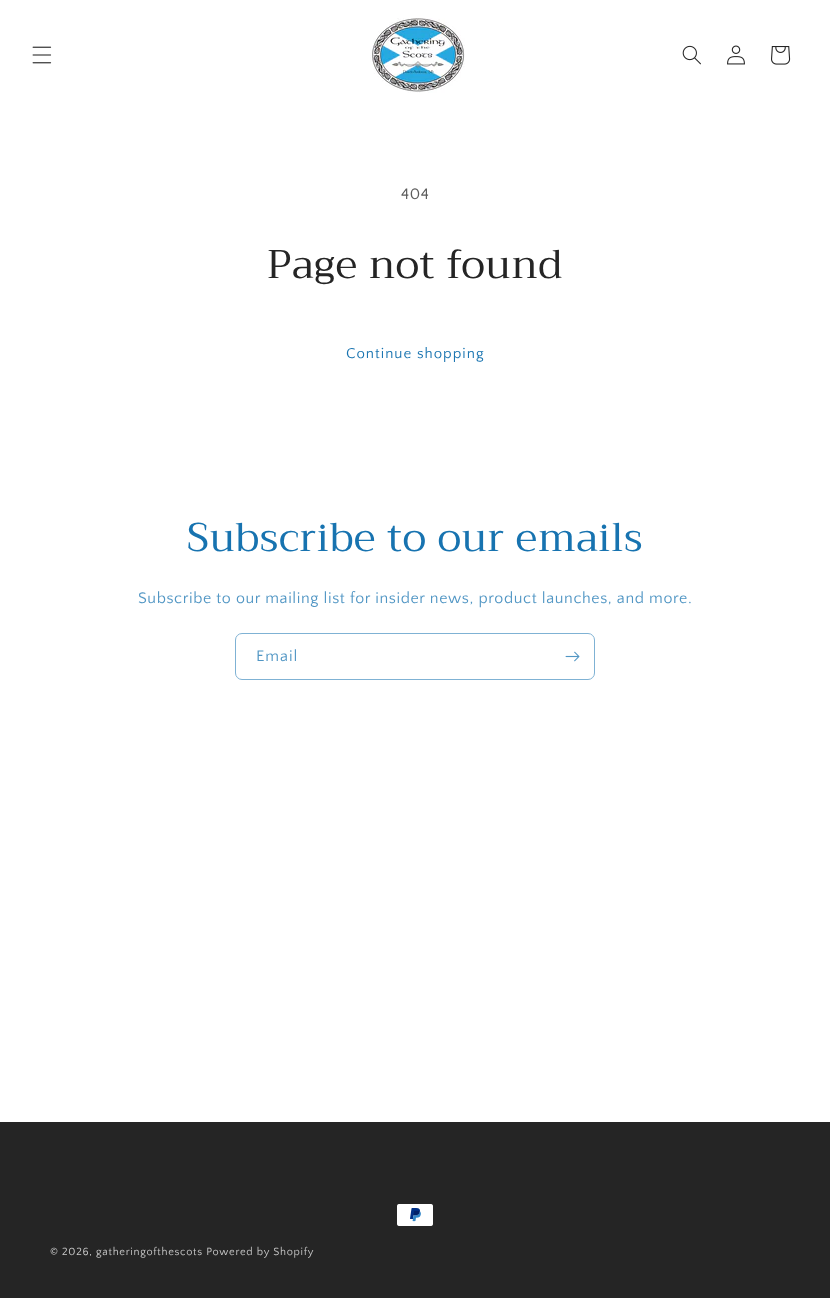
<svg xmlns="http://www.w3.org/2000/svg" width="830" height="1298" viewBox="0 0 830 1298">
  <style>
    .t1 { font: 16px Quattrocento Sans; letter-spacing: 0.6px; fill: #5c5c5c; }
    .t2 { font: 40px Trirong; letter-spacing: 0.6px; fill: #252525; }
    .t3 { font: 15px Quattrocento Sans; letter-spacing: 1px; fill: #1773b0; }
    .t4 { font: 40px Trirong; letter-spacing: 0.6px; fill: #1773b0; }
    .t5 { font: 16px Quattrocento Sans; letter-spacing: 0.6px; fill: #5196c4; }
    .t6 { font: 16px Quattrocento Sans; letter-spacing: 1px; fill: #5196c4; }
    .t7 { font: 11px Quattrocento Sans; letter-spacing: 0.7px; fill: #c9c9c9; }
  </style>
  <rect width="100%" height="100%" fill="#fff"/>
  <image x="32" y="46" width="20" height="18" href="images/1.png"/>
  <image x="370" y="18" width="95" height="75" href="images/2.png"/>
  <image x="682" y="45" width="19" height="20" href="images/3.png"/>
  <image x="727" y="45" width="18" height="20" href="images/4.png"/>
  <image x="771" y="46" width="20" height="19" href="images/5.png"/>
  <text x="401" y="199" class="t1">404</text>
  <text x="267" y="278" class="t2">Page not found</text>
  <text x="346" y="358" class="t3">Continue shopping</text>
  <text x="187" y="551" class="t4">Subscribe to our emails</text>
  <text x="138" y="603" class="t5">Subscribe to our mailing list for insider news, product launches, and more.</text>
  <rect x="235.5" y="633.5" width="359" height="46" rx="6.5" fill="none" stroke="#7fb2d4"/>
  <text x="256" y="661" class="t6">Email</text>
  <image x="565" y="651" width="15" height="11" href="images/6.png"/>
  <rect x="0" y="1122" width="830" height="176" fill="#252525"/>
  <image x="397" y="1204" width="36" height="22" href="images/7.png"/>
  <text x="50" y="1255" class="t7">© 2026, gatheringofthescots Powered by Shopify</text>
</svg>
